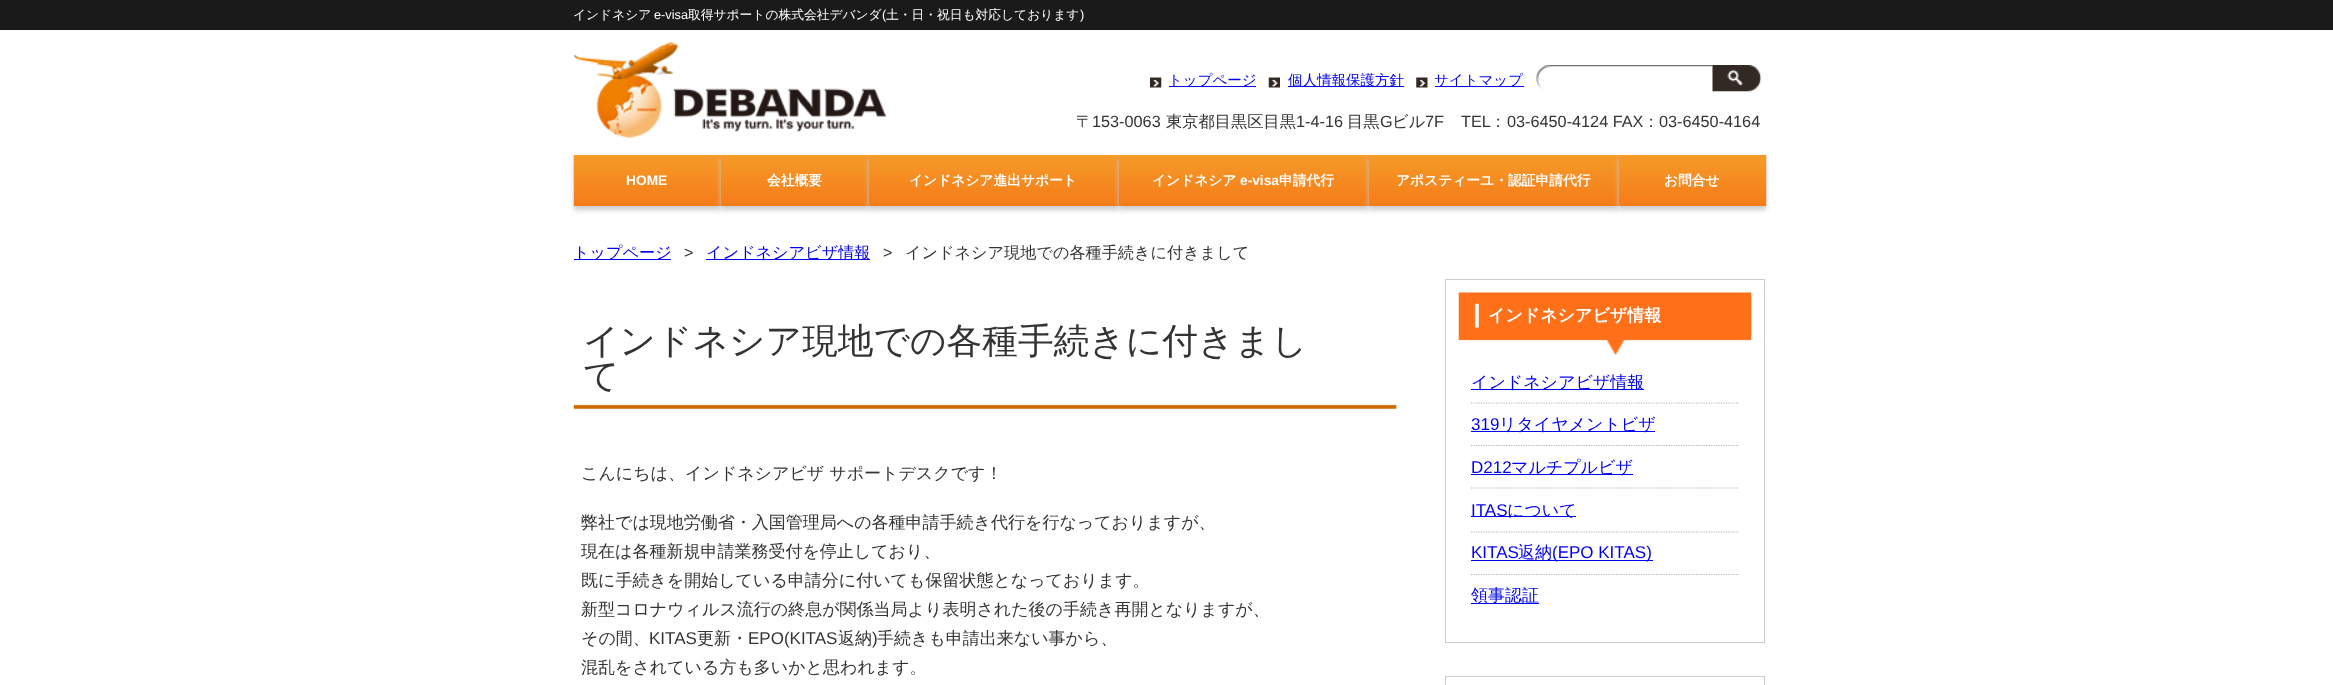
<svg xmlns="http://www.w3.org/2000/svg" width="2333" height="685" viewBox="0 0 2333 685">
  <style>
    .t1 { font: 500 12.75px WenQuanYi Zen Hei; fill: #fff; }
    .t2 { font: 12.75px Liberation Sans; fill: #fff; }
    .t3 { font: 500 14.5px WenQuanYi Zen Hei; fill: #00e; }
    .t4 { font: 500 16.25px WenQuanYi Zen Hei; fill: #333; }
    .t5 { font: 16.25px Liberation Sans; fill: #333; }
    .t6 { font: bold 13.75px Liberation Sans; fill: #fff; }
    .t7 { font: bold 13.75px WenQuanYi Zen Hei; fill: #fff; }
    .t8 { font: 500 16.15px WenQuanYi Zen Hei; fill: #00e; }
    .t9 { font: 16.15px Liberation Sans; letter-spacing: 12px; fill: #333; }
    .t10 { font: 500 16.15px WenQuanYi Zen Hei; fill: #333; }
    .t11 { font: 500 35.7px WenQuanYi Zen Hei; fill: #333; }
    .t12 { font: 500 17px WenQuanYi Zen Hei; fill: #333; }
    .t13 { font: 17px Liberation Sans; fill: #333; }
    .t14 { font: bold 17px WenQuanYi Zen Hei; fill: #fff; }
    .t15 { font: 500 17px WenQuanYi Zen Hei; fill: #00e; }
    .t16 { font: 17px Liberation Sans; fill: #00e; }
  </style>
  <defs>
    <linearGradient id="g1" gradientUnits="userSpaceOnUse" x1="648" y1="155" x2="648" y2="206"><stop offset="0" stop-color="#f59b29"/><stop offset="1" stop-color="#f67b19"/></linearGradient>
    <linearGradient id="g2" gradientUnits="userSpaceOnUse" x1="795" y1="155" x2="795" y2="206"><stop offset="0" stop-color="#f59b29"/><stop offset="1" stop-color="#f67b19"/></linearGradient>
    <linearGradient id="g3" gradientUnits="userSpaceOnUse" x1="994" y1="155" x2="994" y2="206"><stop offset="0" stop-color="#f59b29"/><stop offset="1" stop-color="#f67b19"/></linearGradient>
    <linearGradient id="g4" gradientUnits="userSpaceOnUse" x1="1244" y1="155" x2="1244" y2="206"><stop offset="0" stop-color="#f59b29"/><stop offset="1" stop-color="#f67b19"/></linearGradient>
    <linearGradient id="g5" gradientUnits="userSpaceOnUse" x1="1494" y1="155" x2="1494" y2="206"><stop offset="0" stop-color="#f59b29"/><stop offset="1" stop-color="#f67b19"/></linearGradient>
    <linearGradient id="g6" gradientUnits="userSpaceOnUse" x1="1693" y1="155" x2="1693" y2="206"><stop offset="0" stop-color="#f59b29"/><stop offset="1" stop-color="#f67b19"/></linearGradient>
  </defs>
  <rect width="100%" height="100%" fill="#fff"/>
  <rect x="0" y="0" width="2333" height="30" fill="#1a1a1a"/>
  <text x="573" y="19" class="t1">インドネシア</text>
  <text x="654" y="19" class="t2">e-visa</text>
  <text x="688" y="19" class="t1">取得サポートの株式会社デバンダ</text>
  <text x="882" y="19" class="t2">(</text>
  <text x="886" y="19" class="t1">土・日・祝日も対応しております</text>
  <text x="1080" y="19" class="t2">)</text>
  <image x="573" y="42" width="314" height="96" href="images/1.png"/>
  <image x="1150" y="77" width="12" height="11" href="images/2.png"/>
  <rect x="1169" y="86" width="87" height="1" fill="#00e"/>
  <text x="1168" y="85" class="t3">トップページ</text>
  <image x="1268" y="77" width="12" height="11" href="images/3.png"/>
  <rect x="1288" y="86" width="116" height="1" fill="#00e"/>
  <text x="1288" y="85" class="t3">個人情報保護方針</text>
  <image x="1416" y="77" width="12" height="11" href="images/4.png"/>
  <rect x="1435" y="86" width="89" height="1" fill="#00e"/>
  <text x="1434" y="85" class="t3">サイトマップ</text>
  <image x="1536" y="65" width="177" height="26" href="images/5.png"/>
  <image x="1712" y="65" width="50" height="27" href="images/6.png"/>
  <text x="1076" y="127" class="t4">〒</text>
  <text x="1092" y="127" class="t5">153-0063</text>
  <text x="1166" y="127" class="t4">東京都目黒区目黒</text>
  <text x="1296" y="127" class="t5">1-4-16</text>
  <text x="1347" y="127" class="t4">目黒</text>
  <text x="1380" y="127" class="t5">G</text>
  <text x="1392" y="127" class="t4">ビル</text>
  <text x="1425" y="127" class="t5">7F</text>
  <text x="1461" y="127" class="t5">TEL</text>
  <text x="1490" y="127" class="t4">：</text>
  <text x="1507" y="127" class="t5">03-6450-4124 FAX</text>
  <text x="1643" y="127" class="t4">：</text>
  <text x="1659" y="127" class="t5">03-6450-4164</text>
  <image x="573" y="155" width="149" height="52" href="images/7.png"/>
  <rect x="574" y="159" width="147" height="51" fill="#ccc" filter="blur(2.5px)"/>
  <rect x="574" y="155" width="147" height="51" fill="url(#g1)"/>
  <text x="626" y="185" class="t6">HOME</text>
  <image x="721" y="206" width="148" height="1" href="images/8.png"/>
  <rect x="721" y="159" width="148" height="51" fill="#ccc" filter="blur(2.5px)"/>
  <rect x="721" y="155" width="148" height="51" fill="url(#g2)"/>
  <text x="767" y="185" class="t7">会社概要</text>
  <image x="868" y="155" width="251" height="52" href="images/9.png"/>
  <rect x="869" y="159" width="250" height="51" fill="#ccc" filter="blur(2.5px)"/>
  <rect x="869" y="155" width="250" height="51" fill="url(#g3)"/>
  <text x="909" y="185" class="t7">インドネシア進出サポート</text>
  <image x="1118" y="155" width="251" height="52" href="images/10.png"/>
  <rect x="1119" y="159" width="250" height="51" fill="#ccc" filter="blur(2.5px)"/>
  <rect x="1119" y="155" width="250" height="51" fill="url(#g4)"/>
  <text x="1152" y="185" class="t7">インドネシア</text>
  <text x="1240" y="185" class="t6">e-visa</text>
  <text x="1279" y="185" class="t7">申請代行</text>
  <image x="1368" y="155" width="251" height="52" href="images/11.png"/>
  <rect x="1369" y="159" width="250" height="51" fill="#ccc" filter="blur(2.5px)"/>
  <rect x="1369" y="155" width="250" height="51" fill="url(#g5)"/>
  <text x="1396" y="185" class="t7">アポスティーユ・認証申請代行</text>
  <image x="1618" y="155" width="149" height="52" href="images/12.png"/>
  <rect x="1619" y="159" width="147" height="51" fill="#ccc" filter="blur(2.5px)"/>
  <rect x="1619" y="155" width="147" height="51" fill="url(#g6)"/>
  <text x="1664" y="185" class="t7">お問合せ</text>
  <rect x="574" y="259" width="97" height="1" fill="#00e"/>
  <text x="573" y="258" class="t8">トップページ</text>
  <text x="684" y="258" class="t9">&gt;</text>
  <rect x="706" y="259" width="164" height="1" fill="#00e"/>
  <text x="706" y="258" class="t8">インドネシアビザ情報</text>
  <text x="883" y="258" class="t9">&gt;</text>
  <text x="905" y="258" class="t10">インドネシア現地での各種手続きに付きまして</text>
  <image x="573" y="404" width="824" height="5" href="images/13.png"/>
  <text x="583" y="353" class="t11">インドネシア現地での各種手続きに付きまし</text>
  <text x="583" y="388" class="t11">て</text>
  <text x="581" y="479" class="t12">こんにちは、インドネシアビザ サポートデスクです！</text>
  <text x="581" y="528" class="t12">弊社では現地労働省・入国管理局への各種申請手続き代行を行なっておりますが、</text>
  <text x="581" y="557" class="t12">現在は各種新規申請業務受付を停止しており、</text>
  <text x="581" y="586" class="t12">既に手続きを開始している申請分に付いても保留状態となっております。</text>
  <text x="581" y="615" class="t12">新型コロナウィルス流行の終息が関係当局より表明された後の手続き再開となりますが、</text>
  <text x="581" y="644" class="t12">その間、</text>
  <text x="649" y="644" class="t13">KITAS</text>
  <text x="697" y="644" class="t12">更新・</text>
  <text x="748" y="644" class="t13">EPO(KITAS</text>
  <text x="838" y="644" class="t12">返納</text>
  <text x="872" y="644" class="t13">)</text>
  <text x="877" y="644" class="t12">手続きも申請出来ない事から、</text>
  <text x="581" y="673" class="t12">混乱をされている方も多いかと思われます。</text>
  <rect x="1445.5" y="279.5" width="319" height="363" fill="none" stroke="#ccc"/>
  <image x="1458" y="292" width="294" height="63" href="images/14.png"/>
  <text x="1488" y="321" class="t14">インドネシアビザ情報</text>
  <rect x="1471" y="389" width="173" height="1" fill="#00e"/>
  <text x="1471" y="388" class="t15">インドネシアビザ情報</text>
  <path d="M1471 403H1739" fill="none" stroke="#b9b4ab" stroke-width="1.2" stroke-dasharray="1.25 1.25"/>
  <text x="1471" y="430" class="t16">319</text>
  <rect x="1471" y="431" width="184" height="1" fill="#00e"/>
  <text x="1499" y="430" class="t15">リタイヤメントビザ</text>
  <path d="M1471 445.5H1739" fill="none" stroke="#b9b4ab" stroke-width="1.2" stroke-dasharray="1.25 1.25"/>
  <text x="1471" y="473" class="t16">D212</text>
  <rect x="1471" y="474" width="162" height="1" fill="#00e"/>
  <text x="1511" y="473" class="t15">マルチプルビザ</text>
  <path d="M1471 488H1739" fill="none" stroke="#b9b4ab" stroke-width="1.2" stroke-dasharray="1.25 1.25"/>
  <rect x="1471" y="516" width="105" height="1" fill="#00e"/>
  <text x="1471" y="516" class="t16">ITAS</text>
  <text x="1507" y="516" class="t15">について</text>
  <path d="M1471 532H1739" fill="none" stroke="#b9b4ab" stroke-width="1.2" stroke-dasharray="1.25 1.25"/>
  <text x="1471" y="558" class="t16">KITAS</text>
  <rect x="1471" y="560" width="182" height="1" fill="#00e"/>
  <text x="1518" y="558" class="t15">返納</text>
  <text x="1552" y="558" class="t16">(EPO KITAS)</text>
  <path d="M1471 574.5H1739" fill="none" stroke="#b9b4ab" stroke-width="1.2" stroke-dasharray="1.25 1.25"/>
  <rect x="1471" y="603" width="68" height="1" fill="#00e"/>
  <text x="1471" y="601" class="t15">領事認証</text>
  <rect x="1445.5" y="676.5" width="319" height="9" fill="none" stroke="#ccc"/>
</svg>
